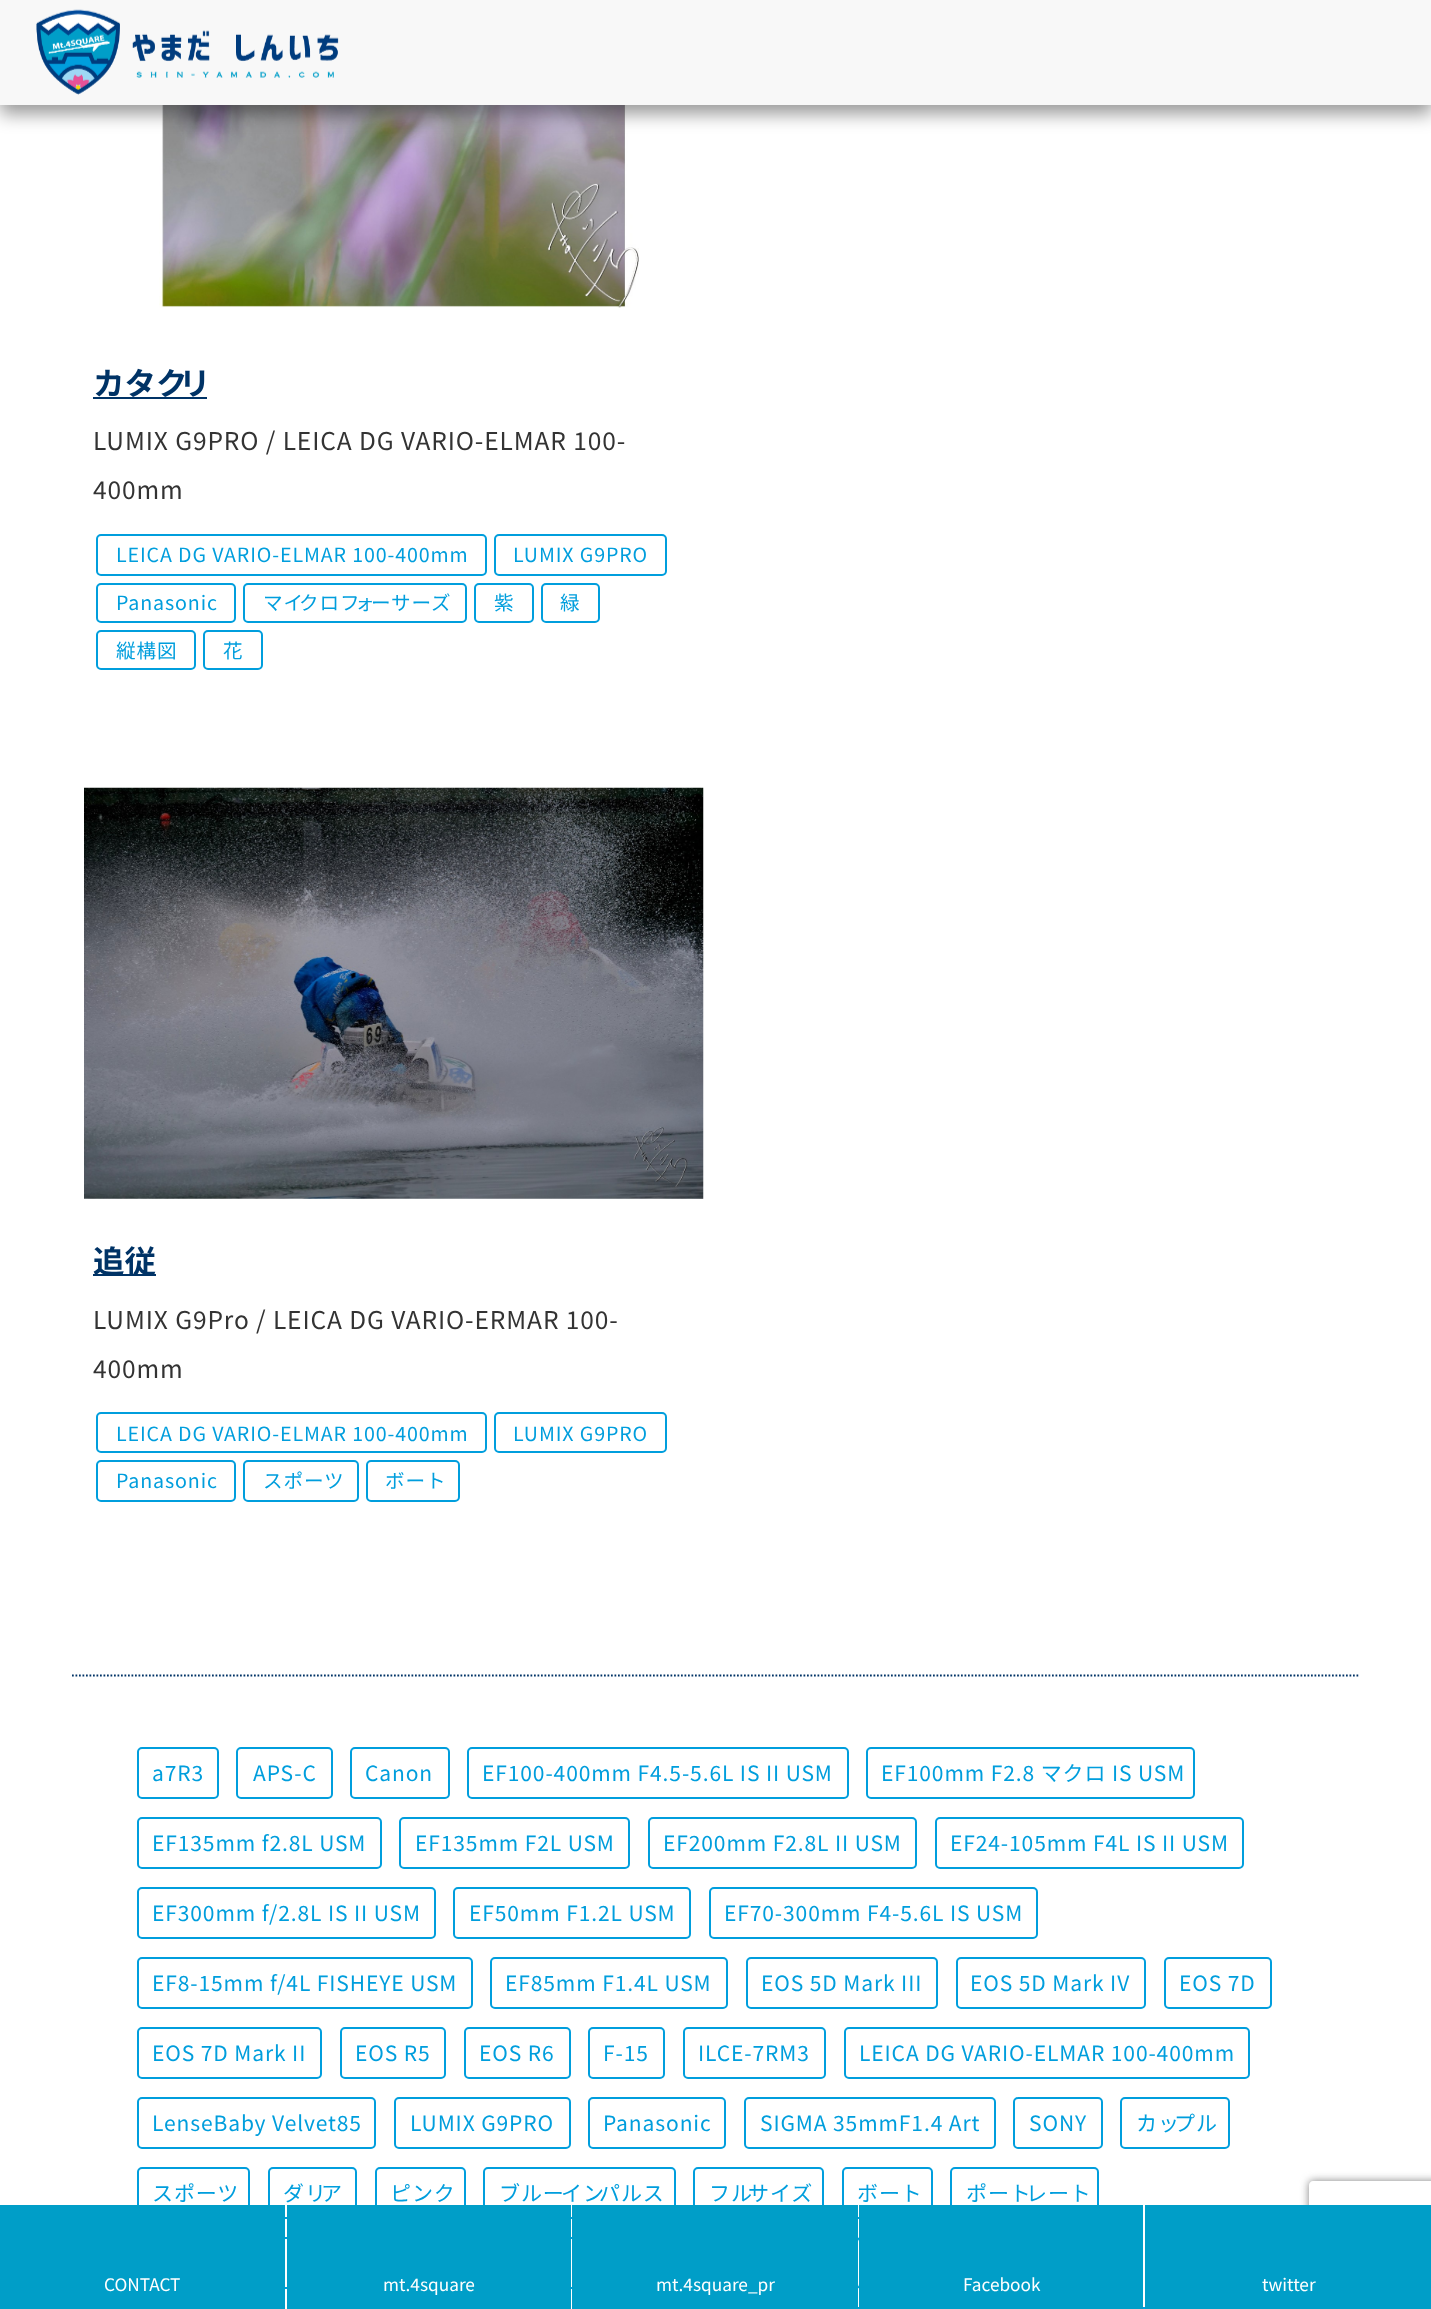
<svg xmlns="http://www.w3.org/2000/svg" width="1431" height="2309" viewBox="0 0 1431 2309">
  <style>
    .t1 { font: bold 31.5px Noto Sans JP; fill: #036; }
    .t2 { font: 24.5px Noto Sans JP; letter-spacing: 0.9px; fill: #333; }
    .t3 { font: 19.6px Noto Sans JP; letter-spacing: 0.9px; fill: #009edd; }
    .t4 { font: 21px Noto Sans JP; letter-spacing: 0.9px; fill: #009edd; }
    .t5 { font: 21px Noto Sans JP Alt; letter-spacing: 0.9px; fill: #009edd; }
    .t6 { font: 17.25px Noto Sans JP; fill: #fff; }
  </style>
  <defs>
    <clipPath id="clip1"><path d="M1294 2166H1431V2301H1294ZM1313 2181H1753C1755 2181 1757 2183 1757 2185V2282C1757 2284 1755 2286 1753 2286H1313C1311 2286 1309 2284 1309 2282V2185C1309 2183 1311 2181 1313 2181Z" clip-rule="evenodd"/></clipPath>
  </defs>
  <rect width="100%" height="100%" fill="#fff"/>
  <image x="159" y="105" width="480" height="203" href="images/2.png"/>
  <rect x="0" y="9" width="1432" height="105" fill="#00000066" filter="blur(9px)"/>
  <rect x="0" y="0" width="1431" height="105" fill="#f8f8f8"/>
  <image x="36" y="9" width="303" height="86" href="images/1.png"/>
  <rect x="93" y="397" width="114" height="2" fill="#036"/>
  <text x="93" y="395" class="t1">カタク</text>
  <text x="179" y="395" class="t1">リ</text>
  <text x="93" y="450" class="t2">LUMIX G9PRO / LEICA DG VARIO-ELMAR 100-</text>
  <text x="93" y="499" class="t2">400mm</text>
  <rect x="97" y="535" width="389" height="40" rx="4" fill="none" stroke="#009edd" stroke-width="2"/>
  <text x="116" y="562" class="t3">LEICA DG VARIO-ELMAR 100-400mm</text>
  <rect x="495" y="535" width="171" height="40" rx="4" fill="none" stroke="#009edd" stroke-width="2"/>
  <text x="513" y="562" class="t3">LUMIX G9PRO</text>
  <rect x="97" y="584" width="138" height="38" rx="4" fill="none" stroke="#009edd" stroke-width="2"/>
  <text x="116" y="610" class="t3">Panasonic</text>
  <rect x="244" y="584" width="222" height="38" rx="4" fill="none" stroke="#009edd" stroke-width="2"/>
  <text x="263" y="610" class="t3">マイ</text>
  <text x="299" y="610" class="t3">クロフ</text>
  <text x="355" y="610" class="t3">ォ</text>
  <text x="371" y="610" class="t3">ーサーズ</text>
  <rect x="475" y="584" width="58" height="38" rx="4" fill="none" stroke="#009edd" stroke-width="2"/>
  <text x="494" y="610" class="t3">紫</text>
  <rect x="542" y="584" width="57" height="38" rx="4" fill="none" stroke="#009edd" stroke-width="2"/>
  <text x="560" y="610" class="t3">緑</text>
  <rect x="97" y="631" width="98" height="38" rx="4" fill="none" stroke="#009edd" stroke-width="2"/>
  <text x="116" y="658" class="t3">縦構図</text>
  <rect x="204" y="631" width="58" height="38" rx="4" fill="none" stroke="#009edd" stroke-width="2"/>
  <text x="223" y="658" class="t3">花</text>
  <image x="84" y="787" width="620" height="412" href="images/3.png"/>
  <rect x="93" y="1274" width="63" height="2" fill="#036"/>
  <text x="93" y="1273" class="t1">追従</text>
  <text x="93" y="1329" class="t2">LUMIX G9Pro / LEICA DG VARIO-ERMAR 100-</text>
  <text x="93" y="1378" class="t2">400mm</text>
  <rect x="97" y="1413" width="389" height="39" rx="4" fill="none" stroke="#009edd" stroke-width="2"/>
  <text x="116" y="1441" class="t3">LEICA DG VARIO-ELMAR 100-400mm</text>
  <rect x="495" y="1413" width="171" height="39" rx="4" fill="none" stroke="#009edd" stroke-width="2"/>
  <text x="513" y="1441" class="t3">LUMIX G9PRO</text>
  <rect x="97" y="1461" width="138" height="40" rx="4" fill="none" stroke="#009edd" stroke-width="2"/>
  <text x="116" y="1488" class="t3">Panasonic</text>
  <rect x="244" y="1461" width="114" height="40" rx="4" fill="none" stroke="#009edd" stroke-width="2"/>
  <text x="263" y="1488" class="t3">スポーツ</text>
  <rect x="367" y="1461" width="92" height="40" rx="4" fill="none" stroke="#009edd" stroke-width="2"/>
  <text x="385" y="1488" class="t3">ボート</text>
  <path d="M72 1675.5H1360" fill="none" stroke="#036" stroke-width="1.8" stroke-dasharray="1.75 1.75"/>
  <rect x="138" y="1748" width="80" height="50" rx="4" fill="none" stroke="#009edd" stroke-width="2"/>
  <text x="152" y="1781" class="t4">a7R3</text>
  <rect x="237" y="1748" width="95" height="50" rx="4" fill="none" stroke="#009edd" stroke-width="2"/>
  <text x="253" y="1781" class="t4">APS-C</text>
  <rect x="351" y="1748" width="98" height="50" rx="4" fill="none" stroke="#009edd" stroke-width="2"/>
  <text x="365" y="1781" class="t4">Canon</text>
  <rect x="468" y="1748" width="380" height="50" rx="4" fill="none" stroke="#009edd" stroke-width="2"/>
  <text x="482" y="1781" class="t4">EF100-400mm F4.5-5.6L IS II USM</text>
  <rect x="867" y="1748" width="327" height="50" rx="4" fill="none" stroke="#009edd" stroke-width="2"/>
  <text x="881" y="1781" class="t5">EF100mm F2.8 マクロ IS USM</text>
  <rect x="138" y="1818" width="243" height="50" rx="4" fill="none" stroke="#009edd" stroke-width="2"/>
  <text x="152" y="1851" class="t4">EF135mm f2.8L USM</text>
  <rect x="400" y="1818" width="229" height="50" rx="4" fill="none" stroke="#009edd" stroke-width="2"/>
  <text x="415" y="1851" class="t4">EF135mm F2L USM</text>
  <rect x="649" y="1818" width="267" height="50" rx="4" fill="none" stroke="#009edd" stroke-width="2"/>
  <text x="663" y="1851" class="t4">EF200mm F2.8L II USM</text>
  <rect x="936" y="1818" width="307" height="50" rx="4" fill="none" stroke="#009edd" stroke-width="2"/>
  <text x="950" y="1851" class="t4">EF24-105mm F4L IS II USM</text>
  <rect x="138" y="1888" width="297" height="50" rx="4" fill="none" stroke="#009edd" stroke-width="2"/>
  <text x="152" y="1921" class="t4">EF300mm f/2.8L IS II USM</text>
  <rect x="454" y="1888" width="236" height="50" rx="4" fill="none" stroke="#009edd" stroke-width="2"/>
  <text x="469" y="1921" class="t4">EF50mm F1.2L USM</text>
  <rect x="710" y="1888" width="327" height="50" rx="4" fill="none" stroke="#009edd" stroke-width="2"/>
  <text x="724" y="1921" class="t4">EF70-300mm F4-5.6L IS USM</text>
  <rect x="138" y="1958" width="334" height="50" rx="4" fill="none" stroke="#009edd" stroke-width="2"/>
  <text x="152" y="1991" class="t4">EF8-15mm f/4L FISHEYE USM</text>
  <rect x="491" y="1958" width="236" height="50" rx="4" fill="none" stroke="#009edd" stroke-width="2"/>
  <text x="505" y="1991" class="t4">EF85mm F1.4L USM</text>
  <rect x="747" y="1958" width="190" height="50" rx="4" fill="none" stroke="#009edd" stroke-width="2"/>
  <text x="761" y="1991" class="t4">EOS 5D Mark III</text>
  <rect x="957" y="1958" width="188" height="50" rx="4" fill="none" stroke="#009edd" stroke-width="2"/>
  <text x="970" y="1991" class="t4">EOS 5D Mark IV</text>
  <rect x="1165" y="1958" width="106" height="50" rx="4" fill="none" stroke="#009edd" stroke-width="2"/>
  <text x="1179" y="1991" class="t4">EOS 7D</text>
  <rect x="138" y="2028" width="183" height="50" rx="4" fill="none" stroke="#009edd" stroke-width="2"/>
  <text x="152" y="2061" class="t4">EOS 7D Mark II</text>
  <rect x="341" y="2028" width="104" height="50" rx="4" fill="none" stroke="#009edd" stroke-width="2"/>
  <text x="355" y="2061" class="t4">EOS R5</text>
  <rect x="465" y="2028" width="105" height="50" rx="4" fill="none" stroke="#009edd" stroke-width="2"/>
  <text x="479" y="2061" class="t4">EOS R6</text>
  <rect x="589" y="2028" width="75" height="50" rx="4" fill="none" stroke="#009edd" stroke-width="2"/>
  <text x="603" y="2061" class="t4">F-15</text>
  <rect x="684" y="2028" width="141" height="50" rx="4" fill="none" stroke="#009edd" stroke-width="2"/>
  <text x="698" y="2061" class="t4">ILCE-7RM3</text>
  <rect x="845" y="2028" width="404" height="50" rx="4" fill="none" stroke="#009edd" stroke-width="2"/>
  <text x="859" y="2061" class="t4">LEICA DG VARIO-ELMAR 100-400mm</text>
  <rect x="138" y="2098" width="237" height="50" rx="4" fill="none" stroke="#009edd" stroke-width="2"/>
  <text x="152" y="2131" class="t4">LenseBaby Velvet85</text>
  <rect x="395" y="2098" width="175" height="50" rx="4" fill="none" stroke="#009edd" stroke-width="2"/>
  <text x="410" y="2131" class="t4">LUMIX G9PRO</text>
  <rect x="589" y="2098" width="136" height="50" rx="4" fill="none" stroke="#009edd" stroke-width="2"/>
  <text x="603" y="2131" class="t4">Panasonic</text>
  <rect x="745" y="2098" width="250" height="50" rx="4" fill="none" stroke="#009edd" stroke-width="2"/>
  <text x="760" y="2131" class="t4">SIGMA 35mmF1.4 Art</text>
  <rect x="1014" y="2098" width="88" height="50" rx="4" fill="none" stroke="#009edd" stroke-width="2"/>
  <text x="1029" y="2131" class="t4">SONY</text>
  <rect x="1121" y="2098" width="108" height="50" rx="4" fill="none" stroke="#009edd" stroke-width="2"/>
  <text x="1136" y="2131" class="t4">カッ</text>
  <text x="1174" y="2131" class="t4">プル</text>
  <rect x="138" y="2168" width="111" height="50" rx="4" fill="none" stroke="#009edd" stroke-width="2"/>
  <text x="152" y="2201" class="t4">スポーツ</text>
  <rect x="269" y="2168" width="87" height="50" rx="4" fill="none" stroke="#009edd" stroke-width="2"/>
  <text x="283" y="2201" class="t4">ダリ</text>
  <text x="321" y="2201" class="t4">ア</text>
  <rect x="376" y="2168" width="89" height="50" rx="4" fill="none" stroke="#009edd" stroke-width="2"/>
  <text x="390" y="2201" class="t4">ピンク</text>
  <rect x="484" y="2168" width="191" height="50" rx="4" fill="none" stroke="#009edd" stroke-width="2"/>
  <text x="499" y="2201" class="t4">ブルー</text>
  <text x="561" y="2201" class="t4">イン</text>
  <text x="599" y="2201" class="t4">パルス</text>
  <rect x="694" y="2168" width="129" height="50" rx="4" fill="none" stroke="#009edd" stroke-width="2"/>
  <text x="709" y="2201" class="t4">フル</text>
  <text x="748" y="2201" class="t4">サイズ</text>
  <rect x="843" y="2168" width="89" height="50" rx="4" fill="none" stroke="#009edd" stroke-width="2"/>
  <text x="857" y="2201" class="t4">ボート</text>
  <rect x="951" y="2168" width="147" height="50" rx="4" fill="none" stroke="#009edd" stroke-width="2"/>
  <text x="966" y="2201" class="t4">ポート</text>
  <text x="1026" y="2201" class="t4">レート</text>
  <rect x="138" y="2238" width="227" height="50" fill="none" stroke="#009edd" stroke-width="2"/>
  <rect x="514" y="2238" width="117" height="50" fill="none" stroke="#009edd" stroke-width="2"/>
  <rect x="857" y="2238" width="105" height="50" rx="4" fill="none" stroke="#009edd" stroke-width="2"/>
  <rect x="813" y="2308" width="96" height="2" fill="none" stroke="#009edd" stroke-width="2"/>
  <rect x="1076" y="2308" width="96" height="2" fill="none" stroke="#009edd" stroke-width="2"/>
  <rect x="0" y="2205" width="285" height="104" fill="#009ec8"/>
  <text x="104" y="2291" class="t6">CONTACT</text>
  <rect x="287" y="2205" width="284" height="104" fill="#009ec8"/>
  <text x="383" y="2291" class="t6">mt.4square</text>
  <rect x="572" y="2205" width="286" height="104" fill="#009ec8"/>
  <text x="656" y="2291" class="t6">mt.4square_pr</text>
  <rect x="859" y="2205" width="284" height="104" fill="#009ec8"/>
  <text x="963" y="2291" class="t6">Facebook</text>
  <g clip-path="url(#clip1)">
    <rect x="1309" y="2181" width="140" height="105" rx="4" fill="#808080" filter="blur(4.5px)"/>
  </g>
  <rect x="1145" y="2205" width="286" height="104" fill="#009ec8"/>
  <text x="1262" y="2291" class="t6">twitter</text>
</svg>
